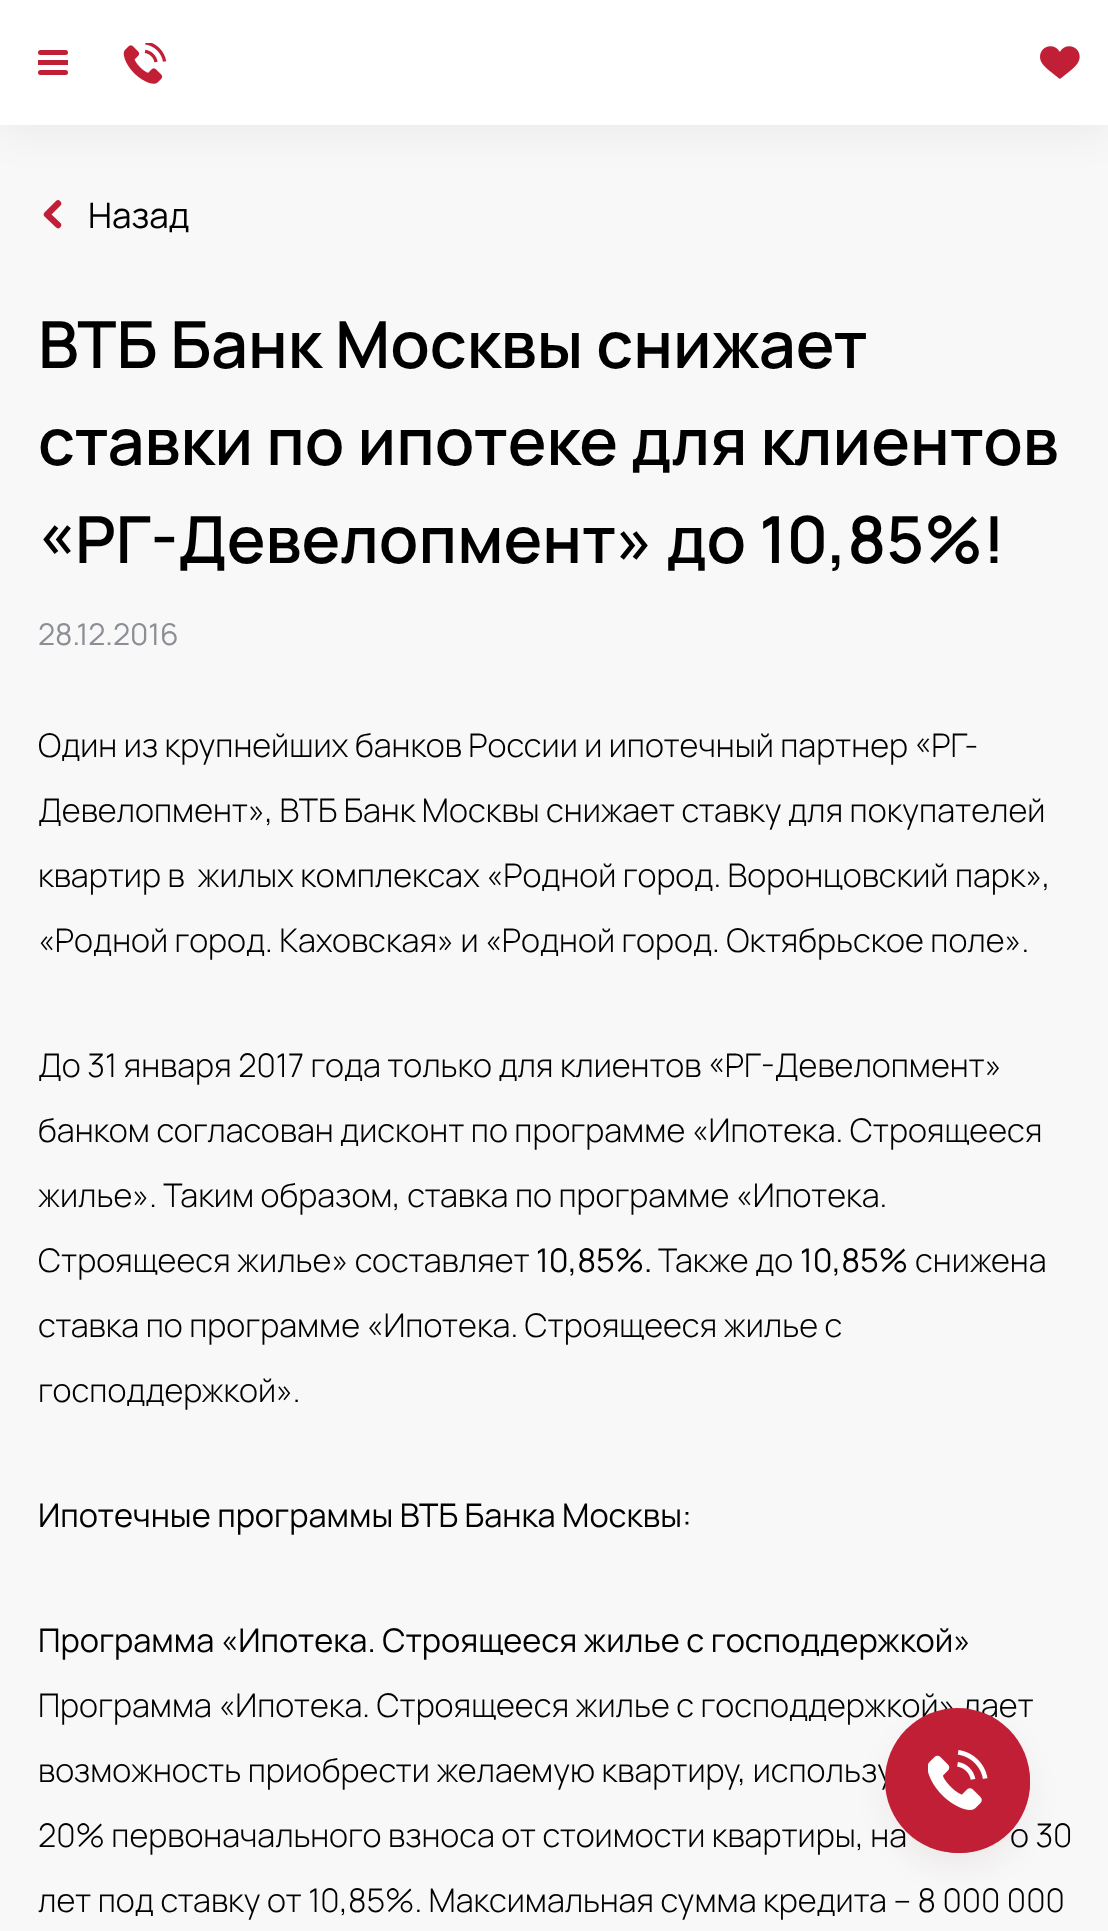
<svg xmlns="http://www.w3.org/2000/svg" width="1108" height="1931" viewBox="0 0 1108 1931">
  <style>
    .t1 { font: 35px Manrope; fill: #000; }
    .t2 { font: 600 65px Manrope; fill: #000; }
    .t3 { font: 30px Manrope; fill: #8b8e94; }
    .t4 { font: 300 32.5px Manrope; fill: #000; }
    .t5 { font: 32.5px Manrope; fill: #000; }
  </style>
  <rect width="100%" height="100%" fill="#f8f8f8"/>
  <rect x="0" y="10" width="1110" height="125" fill="#0000000d" filter="blur(19px)"/>
  <rect x="0" y="0" width="1108" height="125" fill="#fff"/>
  <rect x="38" y="50" width="30" height="5" rx="2.5" fill="#c11f36"/>
  <rect x="38" y="60" width="30" height="5" fill="#c11f36"/>
  <rect x="38" y="70" width="30" height="5" rx="2.5" fill="#c11f36"/>
  <image x="123" y="43" width="44" height="41" href="images/1.png"/>
  <image x="1040" y="46" width="40" height="33" href="images/2.png"/>
  <path d="M58 225L47 214.5L58 203.5" fill="none" stroke="#c11f36" stroke-width="6.4" stroke-linecap="round" stroke-linejoin="round"/>
  <text x="88" y="228" class="t1">Назад</text>
  <text x="38" y="368" class="t2">ВТБ Банк Москвы снижает</text>
  <text x="38" y="465" class="t2">ставки по ипотеке для клиентов</text>
  <text x="38" y="563" class="t2">«РГ-Девелопмент» до 10,85%!</text>
  <text x="38" y="645" class="t3">28.12.2016</text>
  <text x="38" y="757" class="t4">Один из крупнейших банков России и ипотечный партнер «РГ-</text>
  <text x="38" y="822" class="t4">Девелопмент», ВТБ Банк Москвы снижает ставку для покупателей</text>
  <text x="38" y="887" class="t4" xml:space="preserve">квартир в  жилых комплексах «Родной город. Воронцовский парк»,</text>
  <text x="38" y="952" class="t4">«Родной город. Каховская» и «Родной город. Октябрьское поле».</text>
  <text x="38" y="1077" class="t4">До 31 января 2017 года только для клиентов «РГ-Девелопмент»</text>
  <text x="38" y="1142" class="t4">банком согласован дисконт по программе «Ипотека. Строящееся</text>
  <text x="38" y="1207" class="t4">жилье». Таким образом, ставка по программе «Ипотека.</text>
  <text x="38" y="1272" class="t4">Строящееся жилье» составляет</text>
  <text x="536" y="1272" class="t5">10,85%.</text>
  <text x="658" y="1272" class="t4">Также до</text>
  <text x="800" y="1272" class="t5">10,85%</text>
  <text x="915" y="1272" class="t4">снижена</text>
  <text x="38" y="1337" class="t4">ставка по программе «Ипотека. Строящееся жилье с</text>
  <text x="38" y="1402" class="t4">господдержкой».</text>
  <text x="38" y="1527" class="t5">Ипотечные программы ВТБ Банка Москвы:</text>
  <text x="38" y="1652" class="t5">Программа «Ипотека. Строящееся жилье с господдержкой»</text>
  <text x="38" y="1717" class="t4">Программа «Ипотека. Строящееся жилье с господдержкой» дает</text>
  <text x="38" y="1782" class="t4">возможность приобрести желаемую квартиру, использу</text>
  <text x="38" y="1847" class="t4">20% первоначального взноса от стоимости квартиры, на</text>
  <text x="1010" y="1847" class="t4">о 30</text>
  <text x="38" y="1912" class="t4">лет под ставку от 10,85%. Максимальная сумма кредита – 8 000 000</text>
  <rect x="885" y="1723" width="145" height="145" rx="72.5" fill="#3f07070f" filter="blur(15px)"/>
  <circle cx="960" cy="1783" r="70" fill="#c11f36"/>
  <circle cx="957.5" cy="1780.5" r="72.5" fill="#c11f36"/>
  <image x="928" y="1750" width="60" height="60" href="images/3.png"/>
</svg>
